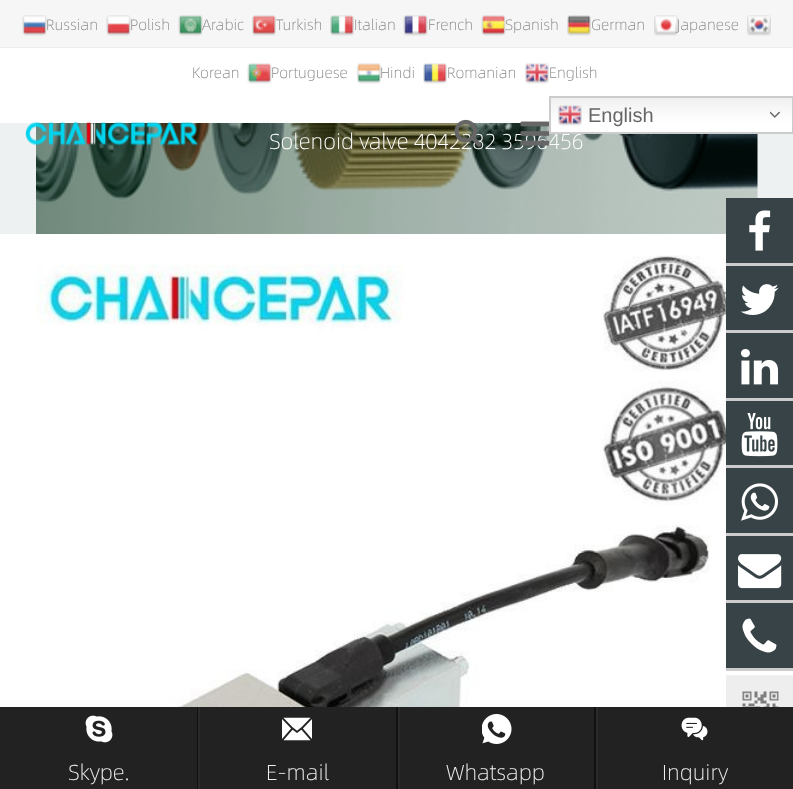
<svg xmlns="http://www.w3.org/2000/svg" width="793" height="789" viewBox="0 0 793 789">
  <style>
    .t1 { font: 300 15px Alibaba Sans; fill: #888; }
    .t2 { font: 300 21.6px Alibaba Sans; fill: #fff; }
    .t3 { font: 20px Liberation Sans; fill: #666; }
    .t4 { font: 300 21.6px Alibaba Sans; fill: #eee; }
  </style>
  <defs>
    <linearGradient id="g1" gradientUnits="userSpaceOnUse" x1="671" y1="96" x2="671" y2="134"><stop offset="0" stop-color="#efefef"/><stop offset="0.7" stop-color="#fff"/></linearGradient>
  </defs>
  <rect width="100%" height="100%" fill="#fff"/>
  <rect x="0" y="0" width="793" height="47" fill="#f6f6f6"/>
  <rect x="0" y="47" width="793" height="1" fill="#eee"/>
  <image x="22" y="15" width="25" height="21" href="images/1.png"/>
  <text x="46" y="30" class="t1">Russian</text>
  <image x="106" y="15" width="25" height="21" href="images/2.png"/>
  <text x="130" y="30" class="t1">Polish</text>
  <text x="202" y="30" class="t1">Arabic</text>
  <image x="178" y="15" width="25" height="21" href="images/3.png"/>
  <image x="252" y="15" width="24" height="21" href="images/4.png"/>
  <text x="276" y="30" class="t1">Turkish</text>
  <image x="330" y="15" width="24" height="21" href="images/5.png"/>
  <text x="354" y="30" class="t1">Italian</text>
  <image x="403" y="15" width="25" height="21" href="images/6.png"/>
  <text x="428" y="30" class="t1">French</text>
  <image x="481" y="15" width="25" height="21" href="images/7.png"/>
  <text x="505" y="30" class="t1">Spanish</text>
  <image x="567" y="15" width="24" height="21" href="images/8.png"/>
  <text x="591" y="30" class="t1">German</text>
  <text x="677" y="30" class="t1">Japanese</text>
  <image x="654" y="15" width="24" height="21" href="images/9.png"/>
  <image x="747" y="15" width="24" height="21" href="images/10.png"/>
  <text x="192" y="78" class="t1">Korean</text>
  <image x="247" y="63" width="25" height="21" href="images/11.png"/>
  <text x="271" y="78" class="t1">Portuguese</text>
  <image x="357" y="63" width="24" height="21" href="images/12.png"/>
  <text x="380" y="78" class="t1">Hindi</text>
  <image x="423" y="63" width="24" height="21" href="images/13.png"/>
  <text x="447" y="78" class="t1">Romanian</text>
  <image x="525" y="63" width="24" height="21" href="images/14.png"/>
  <text x="549" y="78" class="t1">English</text>
  <rect x="0" y="123" width="793" height="111" fill="#edf1f2"/>
  <image x="36" y="123" width="722" height="111" href="images/20.png"/>
  <rect x="551" y="98" width="241" height="34" fill="url(#g1)"/>
  <text x="269" y="149" class="t2">Solenoid valve 4042282 3596456</text>
  <image x="520" y="121" width="30" height="25" href="images/19.png"/>
  <rect x="550" y="97" width="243" height="36" fill="none" stroke="#ccc" stroke-width="2"/>
  <image x="558" y="105" width="24" height="21" href="images/15.png"/>
  <text x="588" y="122" class="t3">English</text>
  <image x="770" y="111" width="10" height="7" href="images/16.png"/>
  <image x="25" y="121" width="174" height="25" href="images/17.png"/>
  <image x="454" y="119" width="28" height="28" href="images/18.png"/>
  <image x="36" y="255" width="701" height="452" href="images/21.png"/>
  <rect x="726" y="198" width="67" height="470" fill="#384347"/>
  <rect x="726" y="263" width="67" height="3" fill="#ccc"/>
  <image x="749" y="210" width="22" height="41" href="images/22.png"/>
  <rect x="726" y="330" width="67" height="3" fill="#ccc"/>
  <image x="740" y="284" width="39" height="31" href="images/23.png"/>
  <rect x="726" y="398" width="67" height="3" fill="#ccc"/>
  <image x="741" y="349" width="38" height="36" href="images/24.png"/>
  <rect x="726" y="465" width="67" height="3" fill="#ccc"/>
  <image x="741" y="413" width="37" height="44" href="images/25.png"/>
  <rect x="726" y="533" width="67" height="3" fill="#ccc"/>
  <image x="741" y="483" width="37" height="38" href="images/26.png"/>
  <rect x="726" y="600" width="67" height="3" fill="#ccc"/>
  <image x="738" y="554" width="44" height="35" href="images/27.png"/>
  <rect x="726" y="668" width="67" height="3" fill="#ccc"/>
  <image x="742" y="618" width="35" height="35" href="images/28.png"/>
  <image x="726" y="675" width="67" height="32" href="images/29.png"/>
  <rect x="0" y="707" width="793" height="82" fill="#222"/>
  <rect x="197" y="707" width="1" height="82" fill="#111"/>
  <image x="85" y="715" width="28" height="28" href="images/30.png"/>
  <text x="68" y="780" class="t4">Skype.</text>
  <rect x="396" y="707" width="2" height="82" fill="#111"/>
  <rect x="198" y="707" width="2" height="82" fill="#2a2a2a"/>
  <image x="282" y="717" width="30" height="24" href="images/31.png"/>
  <text x="266" y="780" class="t4">E-mail</text>
  <rect x="594" y="707" width="2" height="82" fill="#111"/>
  <rect x="398" y="707" width="2" height="82" fill="#2a2a2a"/>
  <image x="482" y="714" width="30" height="30" href="images/32.png"/>
  <text x="446" y="780" class="t4">Whatsapp</text>
  <rect x="596" y="707" width="2" height="82" fill="#2a2a2a"/>
  <image x="681" y="717" width="27" height="24" href="images/33.png"/>
  <text x="662" y="780" class="t4">Inquiry</text>
</svg>
